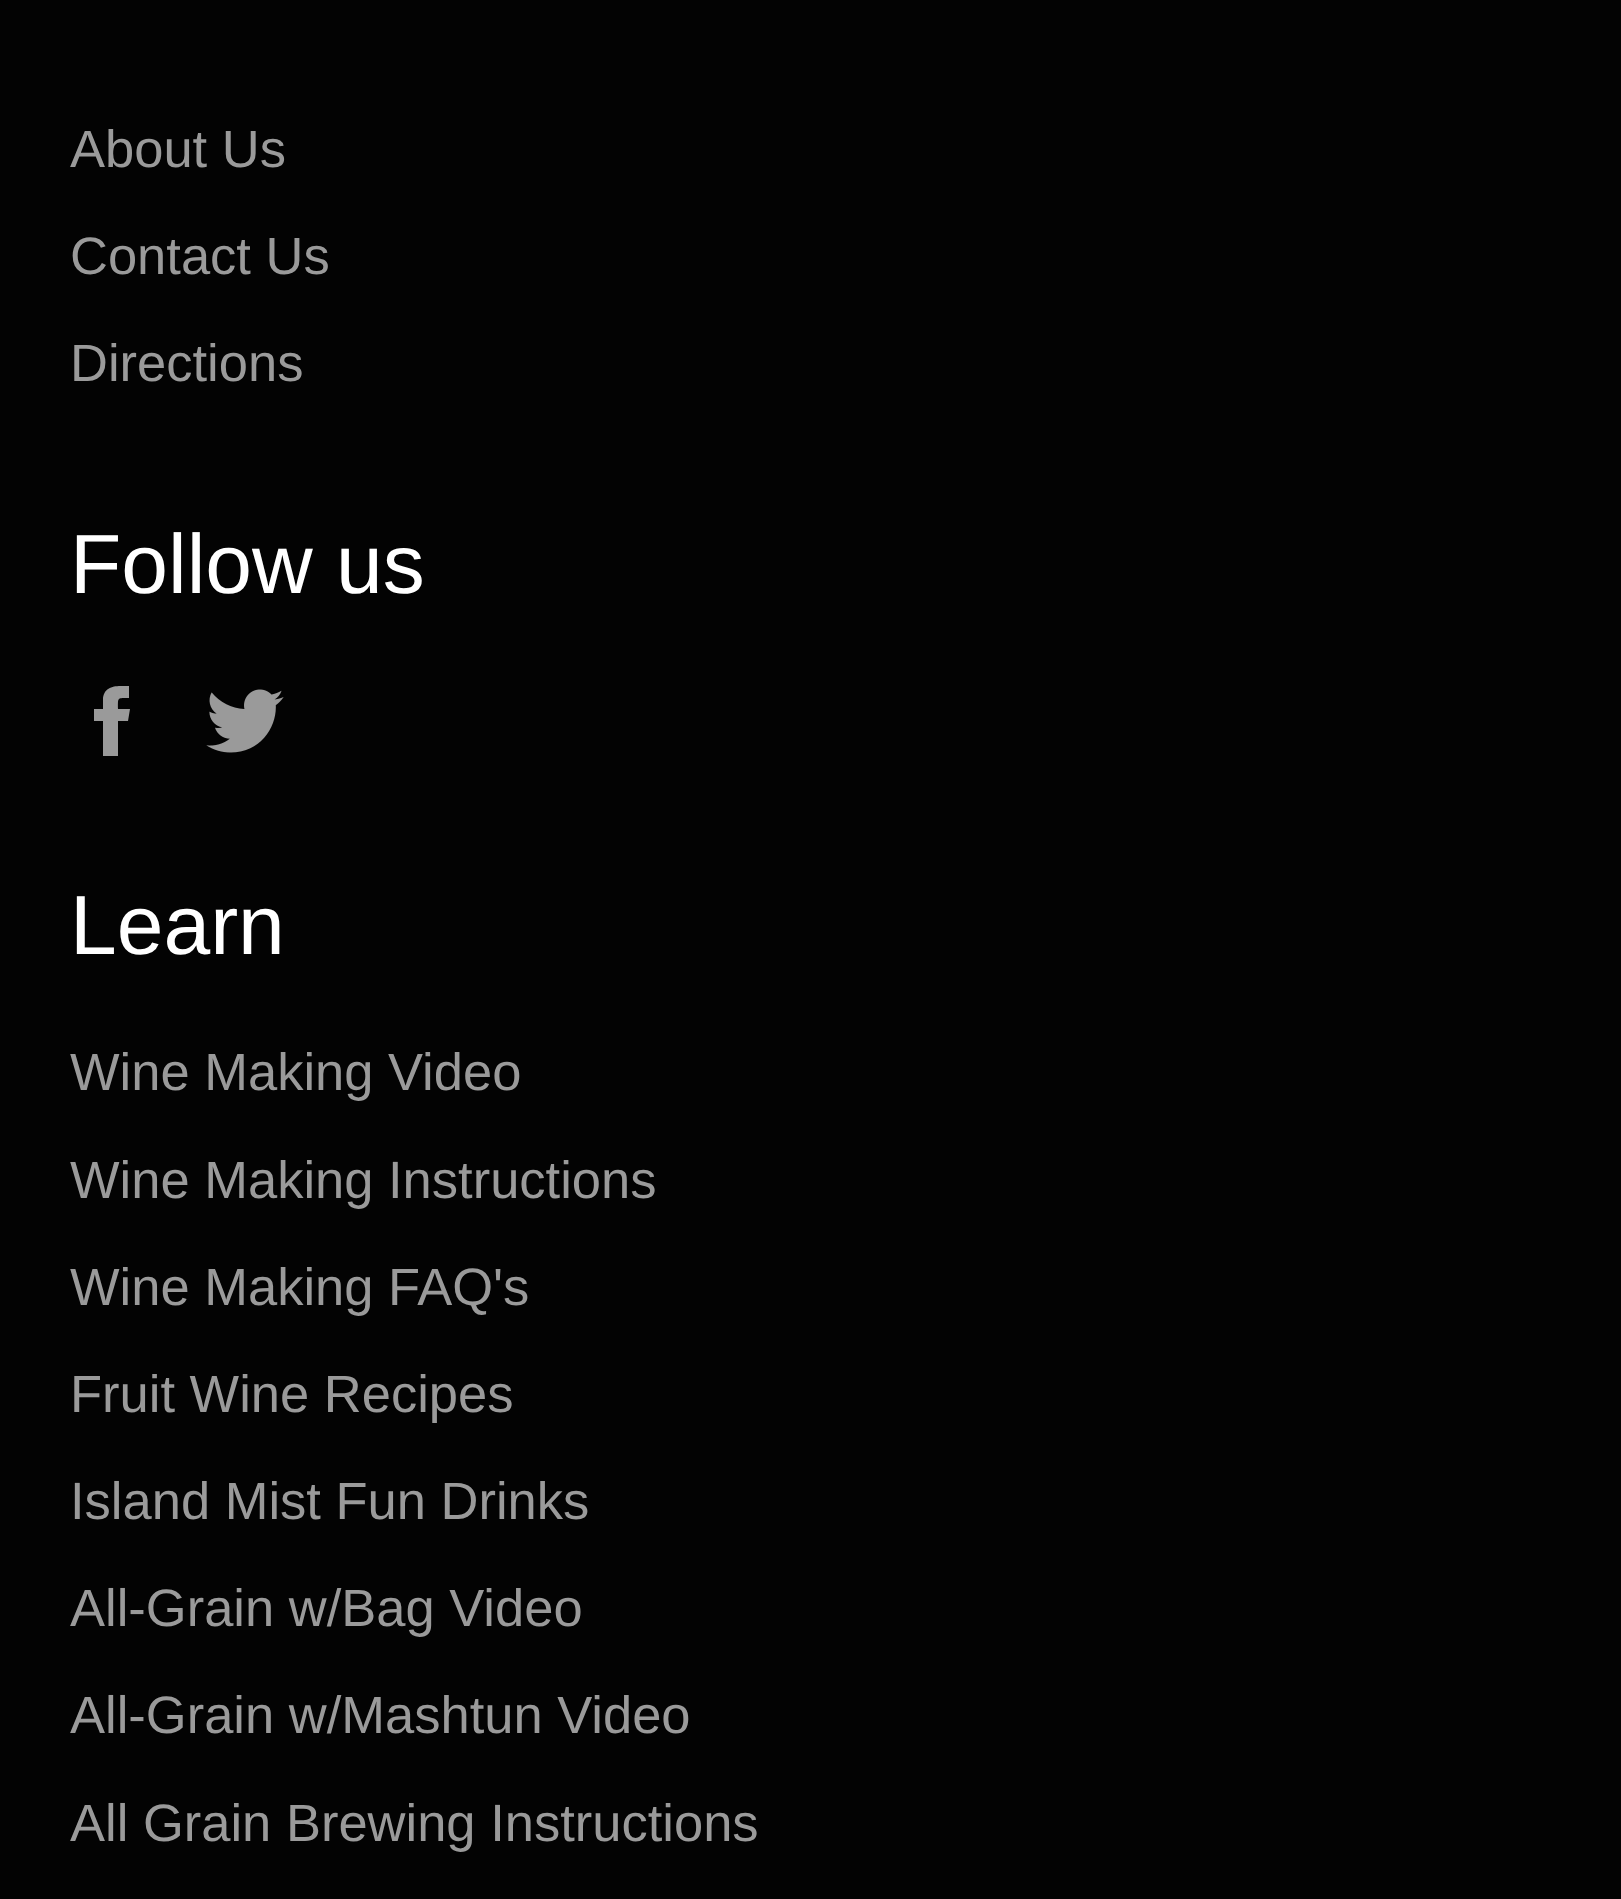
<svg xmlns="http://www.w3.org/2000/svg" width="1621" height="1899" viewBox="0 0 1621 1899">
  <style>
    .t1 { font: 52.5px Liberation Sans; fill: #9a9a9a; }
    .t2 { font: 84px Liberation Sans; fill: #fff; }
  </style>
  <rect width="100%" height="100%" fill="#030303"/>
  <text x="70" y="167" class="t1">About Us</text>
  <text x="70" y="274" class="t1">Contact Us</text>
  <text x="70" y="381" class="t1">Directions</text>
  <text x="70" y="593" class="t2">Follow us</text>
  <path d="M118 709C118 697 117 698 129 698V686C119 686 105 684 103 698V709H94V721H103V756H118V721H128L130 709Z" fill="#9a9a9a"/>
  <image x="206" y="689" width="78" height="64" href="images/1.png"/>
  <text x="70" y="954" class="t2">Learn</text>
  <text x="70" y="1090" class="t1">Wine Making Video</text>
  <text x="70" y="1198" class="t1">Wine Making Instructions</text>
  <text x="70" y="1305" class="t1">Wine Making FAQ's</text>
  <text x="70" y="1412" class="t1">Fruit Wine Recipes</text>
  <text x="70" y="1519" class="t1">Island Mist Fun Drinks</text>
  <text x="70" y="1626" class="t1">All-Grain w/Bag Video</text>
  <text x="70" y="1733" class="t1">All-Grain w/Mashtun Video</text>
  <text x="70" y="1841" class="t1">All Grain Brewing Instructions</text>
</svg>
